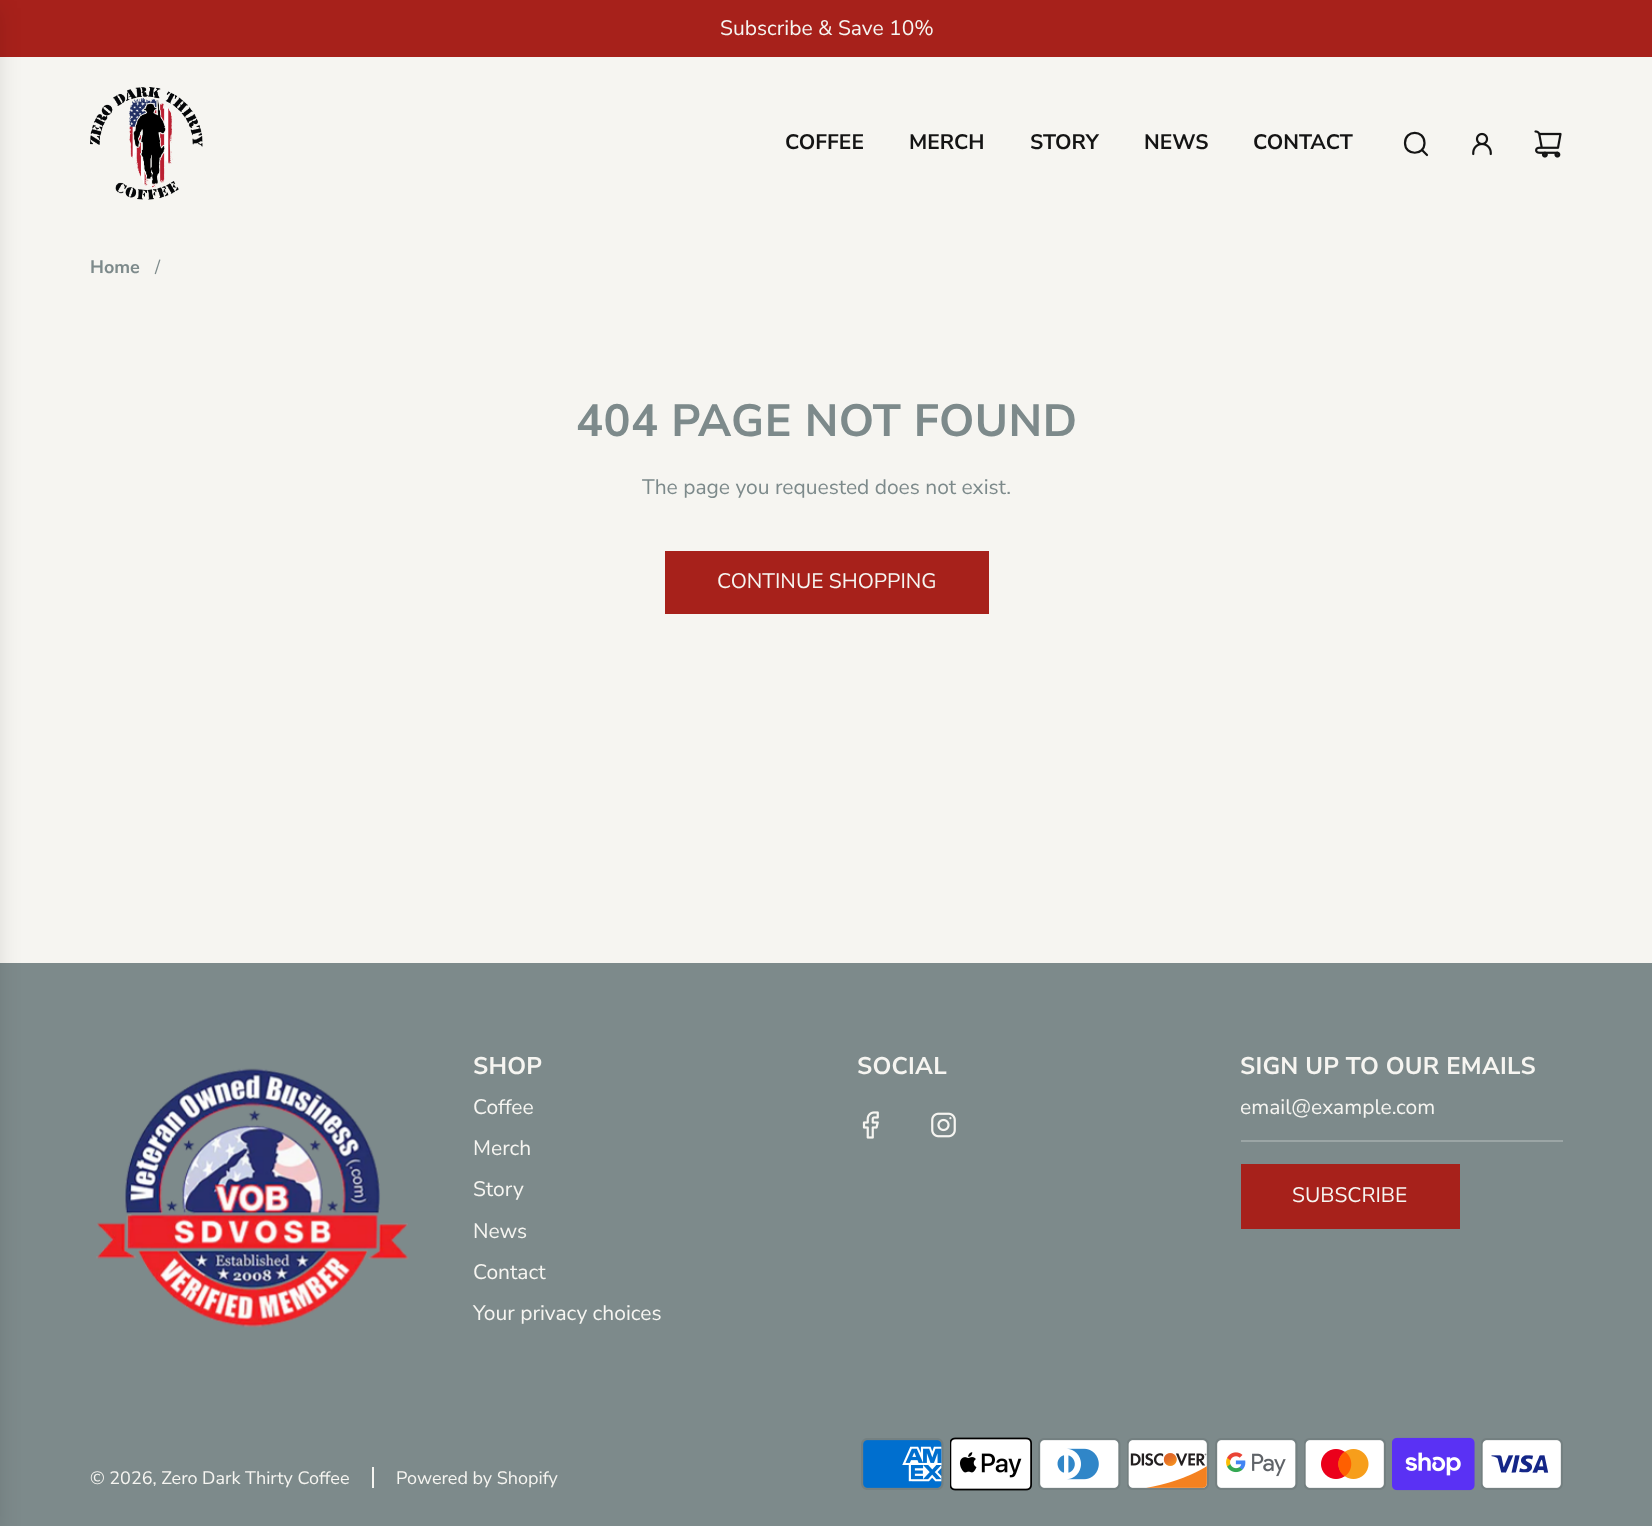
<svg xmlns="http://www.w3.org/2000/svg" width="1652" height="1526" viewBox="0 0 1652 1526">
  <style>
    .t1 { font: 21px Nunito Sans; fill: #f6f5f1; }
    .t2 { font: bold 21px Nunito Sans; fill: #141414; }
    .t3 { font: bold 18px Nunito Sans; fill: #7d8a8b; }
    .t4 { font: 18px Nunito Sans; fill: #7d8a8b; }
    .t5 { font: bold 45px Nunito Sans; letter-spacing: 0.5px; fill: #7d8a8b; }
    .t6 { font: 21px Nunito Sans; fill: #7d8a8b; }
    .t7 { font: bold 24px Nunito Sans; letter-spacing: 0.25px; fill: #f6f5f1; }
    .t8 { font: 18px Nunito Sans; fill: #f6f5f1; }
  </style>
  <defs>
    <clipPath id="clip1"><rect x="1241" y="1094" width="307" height="28"/></clipPath>
  </defs>
  <rect width="100%" height="100%" fill="#f6f5f1"/>
  <rect x="0" y="0" width="1652" height="57" fill="#a7211b"/>
  <text x="720" y="35" class="t1">Subscribe &amp; Save 10%</text>
  <rect x="0" y="963" width="1652" height="563" fill="#7d8a8b"/>
  <rect x="-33" y="8" width="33" height="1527" fill="#0000001a" filter="blur(11px)"/>
  <image x="90" y="87" width="113" height="113" href="images/1.png"/>
  <text x="785" y="149" class="t2">COFFEE</text>
  <text x="909" y="149" class="t2">MERCH</text>
  <text x="1030" y="149" class="t2">STORY</text>
  <text x="1144" y="149" class="t2">NEWS</text>
  <text x="1253" y="149" class="t2">CONTACT</text>
  <path d="M1422.5 150.5L1427 155M1405 143C1405 156 1424.5 156 1424.5 143C1424.5 129.5 1405 129.5 1405 143Z" fill="none" stroke="#141414" stroke-width="2.2" stroke-linecap="round" stroke-linejoin="round"/>
  <image x="1472" y="132" width="20" height="24" href="images/2.png"/>
  <image x="1534" y="130" width="28" height="28" href="images/3.png"/>
  <text x="90" y="273" class="t3">Home</text>
  <text x="155" y="273" class="t4">/</text>
  <text x="576" y="436" class="t5">404 PAGE NOT FOUND</text>
  <text x="642" y="494" class="t6">The page you requested does not exist.</text>
  <rect x="665" y="551" width="324" height="63" fill="#a7211b"/>
  <text x="717" y="588" class="t1">CONTINUE SHOPPING</text>
  <image x="96" y="1068" width="313" height="260" href="images/4.png"/>
  <text x="473" y="1074" class="t7">SHOP</text>
  <text x="473" y="1114" class="t1">Coffee</text>
  <text x="473" y="1155" class="t1">Merch</text>
  <text x="473" y="1196" class="t1">Story</text>
  <text x="473" y="1238" class="t1">News</text>
  <text x="473" y="1279" class="t1">Contact</text>
  <text x="473" y="1320" class="t1">Your privacy choices</text>
  <text x="857" y="1074" class="t7">SOCIAL</text>
  <image x="862" y="1111" width="17" height="28" href="images/5.png"/>
  <image x="931" y="1112" width="25" height="26" href="images/6.png"/>
  <text x="1240" y="1074" class="t7">SIGN UP TO OUR EMAILS</text>
  <rect x="1241" y="1140" width="322" height="2" fill="#9ba5a5"/>
  <g clip-path="url(#clip1)">
    <text x="1240" y="1114" class="t1">email@example.com</text>
  </g>
  <rect x="1241" y="1164" width="219" height="65" fill="#a7211b"/>
  <text x="1292" y="1202" class="t1">SUBSCRIBE</text>
  <text x="90" y="1484" class="t8">© 2026, Zero Dark Thirty Coffee</text>
  <rect x="372" y="1467" width="2" height="21" fill="#f6f5f1"/>
  <text x="396" y="1484" class="t8">Powered by Shopify</text>
  <image x="861" y="1438" width="83" height="52" href="images/7.png"/>
  <image x="950" y="1437" width="82" height="54" href="images/8.png"/>
  <image x="1038" y="1438" width="83" height="52" href="images/9.png"/>
  <image x="1127" y="1438" width="82" height="52" href="images/10.png"/>
  <image x="1215" y="1438" width="83" height="52" href="images/11.png"/>
  <image x="1304" y="1438" width="82" height="52" href="images/12.png"/>
  <image x="1392" y="1437" width="83" height="54" href="images/13.png"/>
  <image x="1481" y="1438" width="82" height="52" href="images/14.png"/>
</svg>
